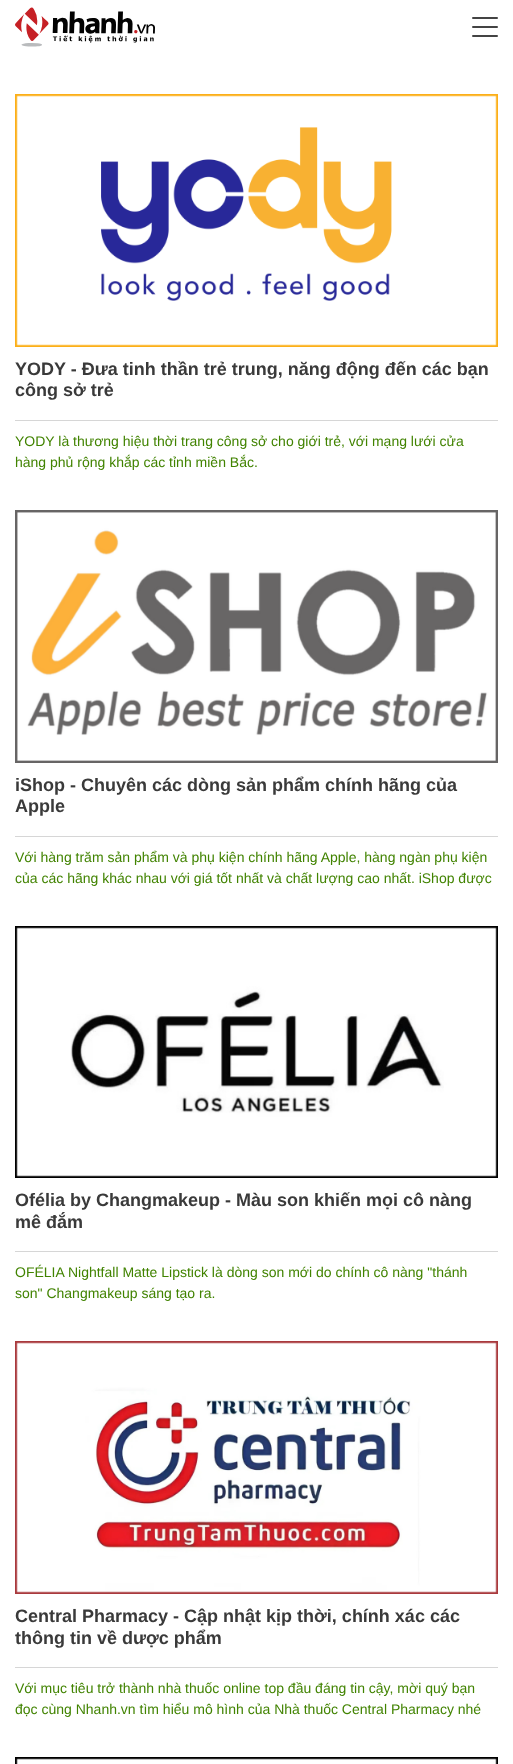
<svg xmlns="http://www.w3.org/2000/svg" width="513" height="1764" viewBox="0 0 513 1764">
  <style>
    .t1 { font: bold 18px Liberation Sans; fill: #3a3a3a; }
    .t2 { font: 14px Liberation Sans; fill: #418300; }
  </style>
  <rect width="100%" height="100%" fill="#fff"/>
  <image x="15" y="7" width="140" height="40" href="images/1.png"/>
  <rect x="472" y="17" width="26" height="2" rx="1" fill="#444"/>
  <rect x="472" y="26" width="26" height="2" rx="1" fill="#444"/>
  <rect x="472" y="35" width="26" height="2" rx="1" fill="#444"/>
  <image x="15" y="94" width="483" height="253" href="images/2.png"/>
  <text x="15" y="375" class="t1">YODY - Đưa tinh thần trẻ trung, năng động đến các bạn</text>
  <text x="15" y="396" class="t1">công sở trẻ</text>
  <rect x="15" y="420" width="483" height="1" fill="#d6d6d6"/>
  <text x="15" y="446" class="t2">YODY là thương hiệu thời trang công sở cho giới trẻ, với mạng lưới cửa</text>
  <text x="15" y="467" class="t2">hàng phủ rộng khắp các tỉnh miền Bắc.</text>
  <image x="15" y="510" width="483" height="253" href="images/3.png"/>
  <text x="15" y="791" class="t1">iShop - Chuyên các dòng sản phẩm chính hãng của</text>
  <text x="15" y="812" class="t1">Apple</text>
  <rect x="15" y="836" width="483" height="1" fill="#d6d6d6"/>
  <text x="15" y="862" class="t2">Với hàng trăm sản phẩm và phụ kiện chính hãng Apple, hàng ngàn phụ kiện</text>
  <text x="15" y="883" class="t2">của các hãng khác nhau với giá tốt nhất và chất lượng cao nhất. iShop được</text>
  <image x="15" y="926" width="483" height="252" href="images/4.png"/>
  <text x="15" y="1206" class="t1">Ofélia by Changmakeup - Màu son khiến mọi cô nàng</text>
  <text x="15" y="1228" class="t1">mê đắm</text>
  <rect x="15" y="1251" width="483" height="1" fill="#d6d6d6"/>
  <text x="15" y="1277" class="t2">OFÉLIA Nightfall Matte Lipstick là dòng son mới do chính cô nàng "thánh</text>
  <text x="15" y="1298" class="t2">son" Changmakeup sáng tạo ra.</text>
  <image x="15" y="1341" width="483" height="253" href="images/5.png"/>
  <text x="15" y="1622" class="t1">Central Pharmacy - Cập nhật kịp thời, chính xác các</text>
  <text x="15" y="1644" class="t1">thông tin về dược phẩm</text>
  <rect x="15" y="1667" width="483" height="1" fill="#d6d6d6"/>
  <text x="15" y="1693" class="t2">Với mục tiêu trở thành nhà thuốc online top đầu đáng tin cậy, mời quý bạn</text>
  <text x="15" y="1714" class="t2">đọc cùng Nhanh.vn tìm hiểu mô hình của Nhà thuốc Central Pharmacy nhé</text>
  <image x="15" y="1757" width="483" height="7" href="images/6.png"/>
</svg>
